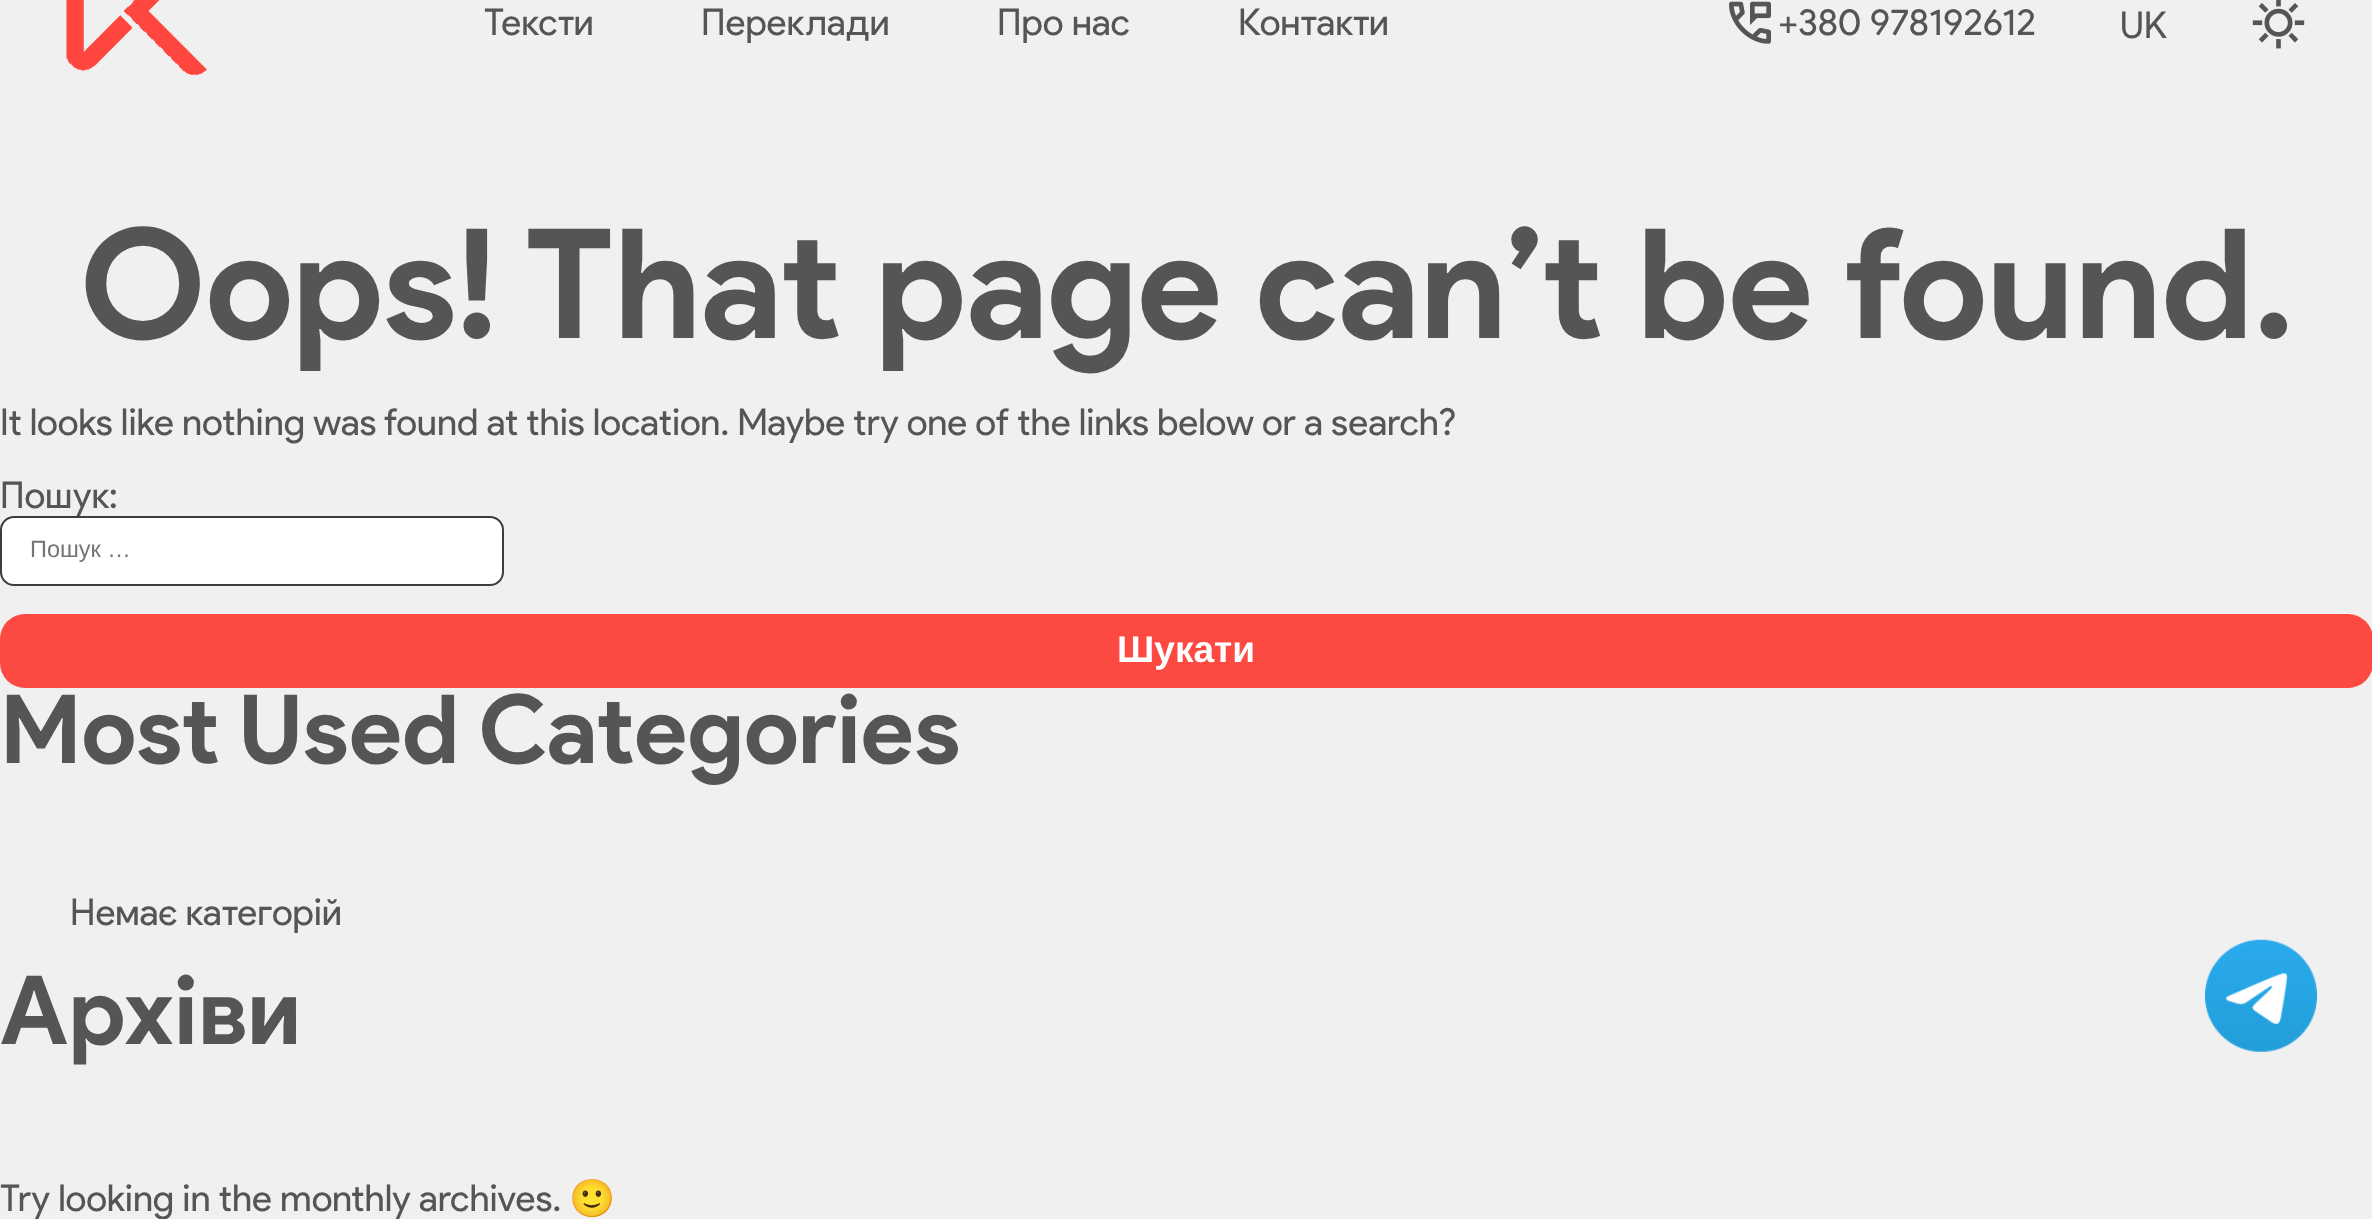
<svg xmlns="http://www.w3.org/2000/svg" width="2372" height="1219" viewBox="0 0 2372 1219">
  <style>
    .t1 { font: 37.1px Product Sans; fill: #555; }
    .t2 { font: bold 152.6px Product Sans; fill: #555; }
    .t3 { font: 23.5px Liberation Sans; fill: #757575; }
    .t4 { font: bold 37.1px Liberation Sans; fill: #fff; }
    .t5 { font: bold 95.25px Product Sans; fill: #555; }
    .t6 { font: 37.1px Noto Color Emoji; fill: #555; }
  </style>
  <rect width="100%" height="100%" fill="#f0f0f0"/>
  <image x="66" y="0" width="141" height="75" href="images/1.png"/>
  <text x="484" y="35" class="t1">Тексти</text>
  <text x="701" y="35" class="t1">Переклади</text>
  <text x="997" y="35" class="t1">Про нас</text>
  <text x="1238" y="35" class="t1">Контакти</text>
  <image x="1729" y="1" width="42" height="43" href="images/2.png"/>
  <text x="1778" y="35" class="t1">+380 978192612</text>
  <text x="2120" y="38" class="t1">UK</text>
  <image x="2252" y="0" width="53" height="49" href="images/3.png"/>
  <text x="80" y="338" class="t2">Oops! That page can’t be found.</text>
  <text x="0" y="435" class="t1">It looks like nothing was found at this location. Maybe try one of the links below or a search?</text>
  <text x="0" y="508" class="t1">Пошук:</text>
  <rect x="1" y="517" width="502" height="68" rx="13" fill="#fff" stroke="#3d3d3d" stroke-width="2"/>
  <text x="30" y="557" class="t3">Пошук …</text>
  <rect x="0" y="614" width="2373" height="74" rx="25" fill="#fc4942"/>
  <text x="1117" y="662" class="t4">Шукати</text>
  <text x="0" y="763" class="t5">Most Used Categories</text>
  <text x="70" y="925" class="t1">Немає категорій</text>
  <text x="0" y="1044" class="t5">Архіви</text>
  <text x="0" y="1211" class="t1">Try looking in the monthly archives.</text>
  <text x="569" y="1211" class="t6">🙂</text>
  <image x="2205" y="939" width="112" height="113" href="images/4.png"/>
</svg>
